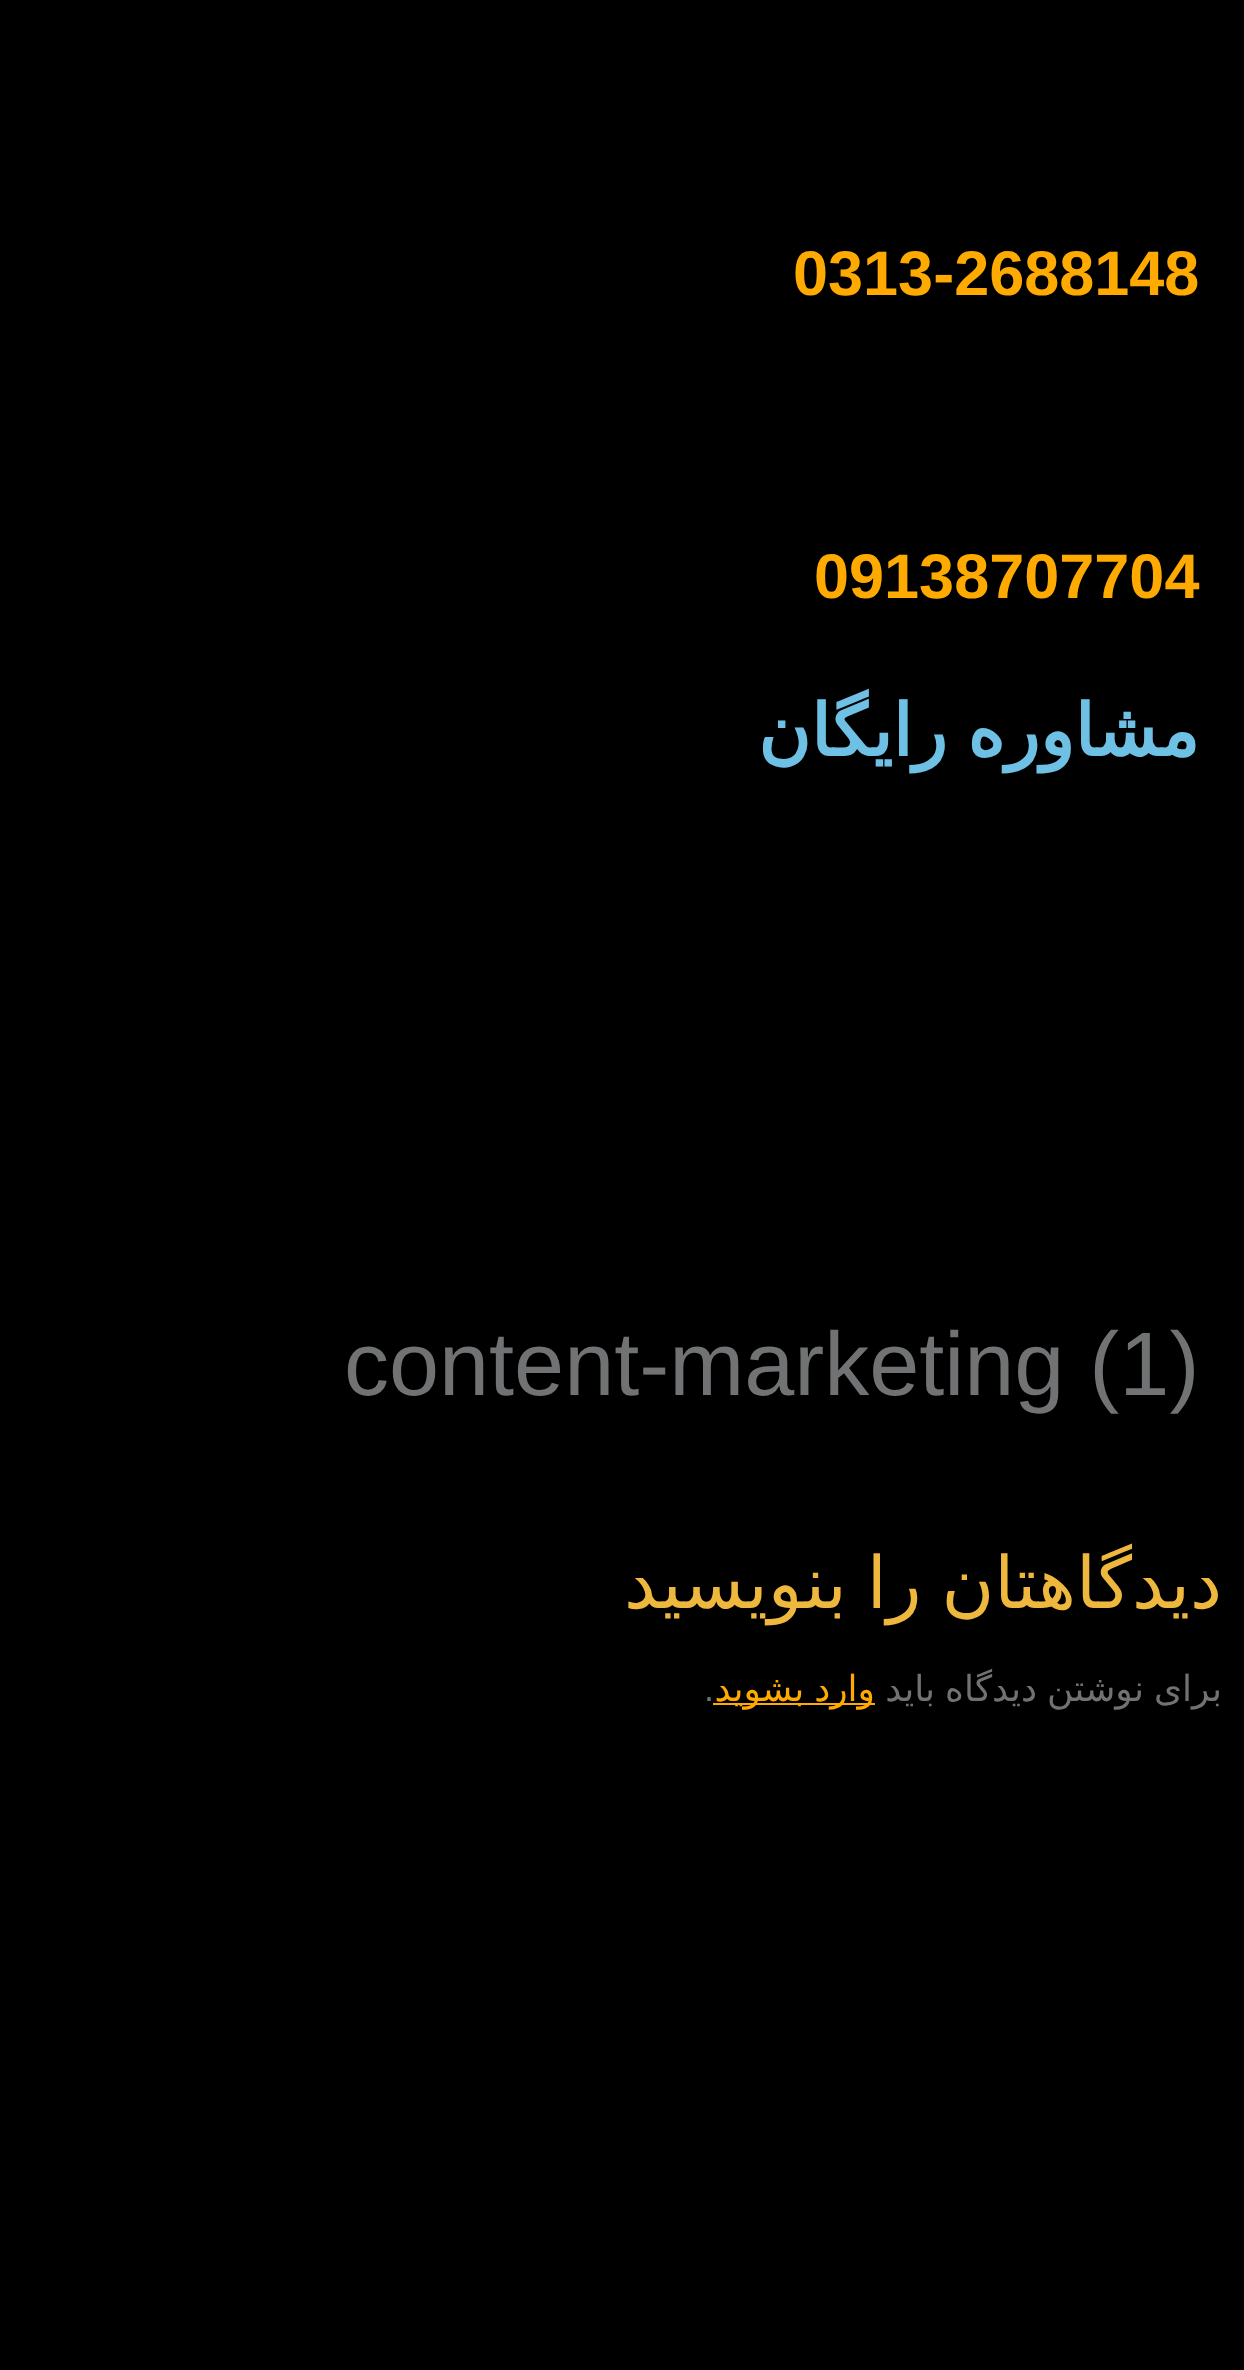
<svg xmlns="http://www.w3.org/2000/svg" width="1244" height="2370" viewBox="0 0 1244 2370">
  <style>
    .t1 { font: bold 63px Liberation Sans; fill: #fa0; }
    .t2 { font: bold 72px DejaVu Sans; direction: rtl; fill: #6ec1e4; }
    .t3 { font: 90px Liberation Sans; fill: #717273; }
    .t4 { font: 72px DejaVu Sans; direction: rtl; fill: #eeb73e; }
    .t5 { font: 36px DejaVu Sans; direction: rtl; fill: #717273; }
    .t6 { font: 36px DejaVu Sans; direction: rtl; fill: #fa0; }
    .t7 { font: 36px Liberation Sans; fill: #717273; }
  </style>
  <rect width="100%" height="100%" fill="#000"/>
  <text x="793" y="295" class="t1">0313-2688148</text>
  <text x="814" y="598" class="t1">09138707704</text>
  <text x="1199" y="756" word-spacing="-3" class="t2">مشاوره رایگان</text>
  <text x="344" y="1395" class="t3">content-marketing (1)</text>
  <text x="1222" y="1608" word-spacing="-3" class="t4">دیدگاهتان را بنویسید</text>
  <text x="1222" y="1701" word-spacing="-1.5" class="t5">برای نوشتن دیدگاه باید</text>
  <rect x="713" y="1703" width="162" height="2" fill="#fa0"/>
  <text x="875" y="1701" word-spacing="-1.5" class="t6">وارد بشوید</text>
  <text x="704" y="1701" class="t7">.</text>
</svg>
